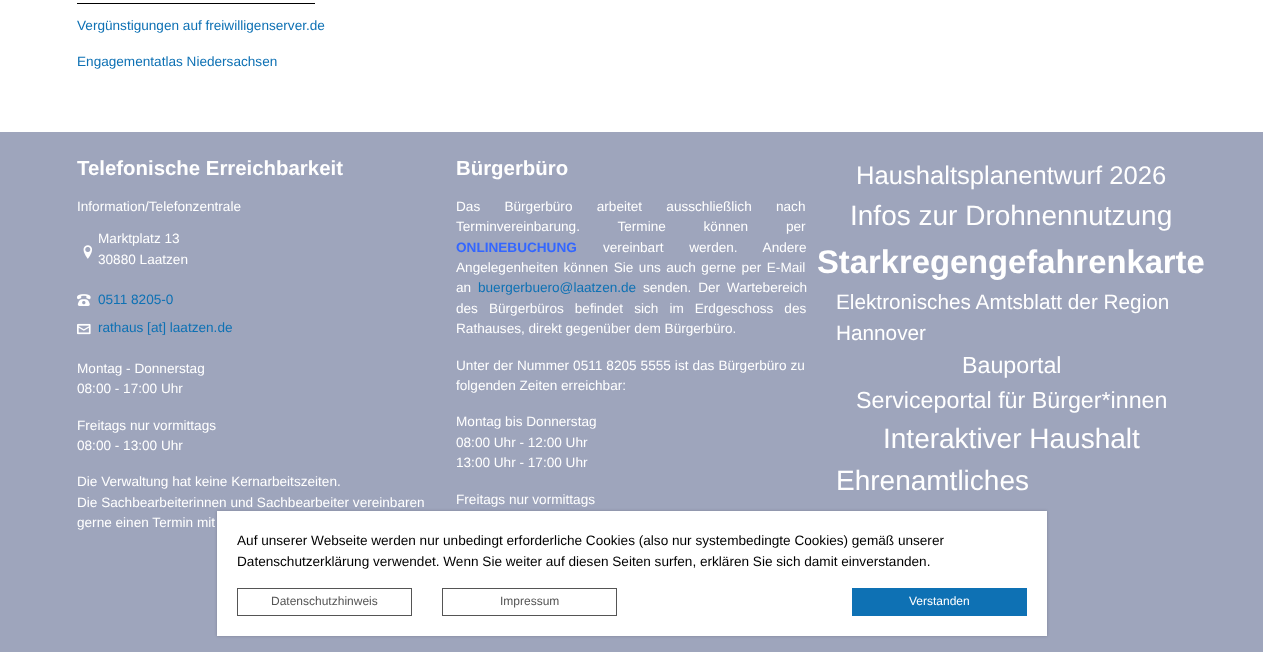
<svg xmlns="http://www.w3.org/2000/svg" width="1263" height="652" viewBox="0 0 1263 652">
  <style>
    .t1 { font: 13.6px Liberation Sans; fill: #0e71b4; }
    .t2 { font: bold 20.4px Liberation Sans; fill: #fff; }
    .t3 { font: 13.6px Liberation Sans; fill: #fff; }
    .t4 { font: bold 13.6px Liberation Sans; fill: #36f; }
    .t5 { font: 25.6px Liberation Sans; fill: #fff; }
    .t6 { font: 28px Liberation Sans; fill: #fff; }
    .t7 { font: bold 32.75px Liberation Sans; fill: #fff; }
    .t8 { font: 20.75px Liberation Sans; fill: #fff; }
    .t9 { font: 23.25px Liberation Sans; fill: #fff; }
    .t10 { font: 13.6px Liberation Sans; fill: #000; }
    .t11 { font: 12px Liberation Sans; fill: #555; }
    .t12 { font: 12px Liberation Sans; fill: #fff; }
  </style>
  <rect width="100%" height="100%" fill="#fff"/>
  <rect x="77" y="3" width="238" height="1" fill="#000"/>
  <text x="77" y="30" class="t1">Vergünstigungen auf freiwilligenserver.de</text>
  <text x="77" y="66" class="t1">Engagementatlas Niedersachsen</text>
  <rect x="0" y="132" width="1263" height="520" fill="#9ea5bc"/>
  <text x="77" y="175" class="t2">Telefonische Erreichbarkeit</text>
  <text x="77" y="211" class="t3">Information/Telefonzentrale</text>
  <image x="83" y="245" width="9" height="14" href="images/1.png"/>
  <text x="98" y="243" class="t3">Marktplatz 13</text>
  <text x="98" y="264" class="t3">30880 Laatzen</text>
  <image x="77" y="294" width="14" height="12" href="images/2.png"/>
  <text x="98" y="304" class="t1">0511 8205-0</text>
  <image x="77" y="323" width="14" height="12" href="images/3.png"/>
  <text x="98" y="332" class="t1">rathaus [at] laatzen.de</text>
  <text x="77" y="373" class="t3">Montag - Donnerstag</text>
  <text x="77" y="393" class="t3">08:00 - 17:00 Uhr</text>
  <text x="77" y="430" class="t3">Freitags nur vormittags</text>
  <text x="77" y="450" class="t3">08:00 - 13:00 Uhr</text>
  <text x="77" y="486" class="t3">Die Verwaltung hat keine Kernarbeitszeiten.</text>
  <text x="77" y="507" class="t3">Die Sachbearbeiterinnen und Sachbearbeiter vereinbaren</text>
  <text x="77" y="527" class="t3">gerne einen Termin mit</text>
  <text x="456" y="175" class="t2">Bürgerbüro</text>
  <text x="456" y="211" word-spacing="20.5" class="t3">Das Bürgerbüro arbeitet ausschließlich nach</text>
  <text x="456" y="231" word-spacing="34" class="t3">Terminvereinbarung. Termine können per</text>
  <text x="456" y="252" class="t4">ONLINEBUCHUNG</text>
  <text x="603" y="252" word-spacing="22" class="t3">vereinbart werden. Andere</text>
  <text x="456" y="272" word-spacing="1.75" class="t3">Angelegenheiten können Sie uns auch gerne per E-Mail</text>
  <text x="456" y="292" class="t3">an</text>
  <text x="478" y="292" class="t1">buergerbuero@laatzen.de</text>
  <text x="643" y="292" word-spacing="3" class="t3">senden. Der Wartebereich</text>
  <text x="456" y="313" word-spacing="7.25" class="t3">des Bürgerbüros befindet sich im Erdgeschoss des</text>
  <text x="456" y="333" class="t3">Rathauses, direkt gegenüber dem Bürgerbüro.</text>
  <text x="456" y="370" word-spacing="0.25" class="t3">Unter der Nummer 0511 8205 5555 ist das Bürgerbüro zu</text>
  <text x="456" y="390" class="t3">folgenden Zeiten erreichbar:</text>
  <text x="456" y="426" class="t3">Montag bis Donnerstag</text>
  <text x="456" y="447" class="t3">08:00 Uhr - 12:00 Uhr</text>
  <text x="456" y="467" class="t3">13:00 Uhr - 17:00 Uhr</text>
  <text x="456" y="504" class="t3">Freitags nur vormittags</text>
  <text x="856" y="184" class="t5">Haushaltsplanentwurf 2026</text>
  <text x="850" y="225" class="t6">Infos zur Drohnennutzung</text>
  <text x="817" y="273" class="t7">Starkregengefahrenkarte</text>
  <text x="836" y="309" class="t8">Elektronisches Amtsblatt der Region</text>
  <text x="836" y="340" class="t8">Hannover</text>
  <text x="962" y="373" class="t9">Bauportal</text>
  <text x="856" y="408" class="t9">Serviceportal für Bürger*innen</text>
  <text x="883" y="448" class="t6">Interaktiver Haushalt</text>
  <text x="836" y="490" class="t6">Ehrenamtliches</text>
  <rect x="217" y="511" width="830" height="125" fill="#00000033" filter="blur(1.5px)"/>
  <rect x="217" y="511" width="830" height="125" fill="#fff"/>
  <text x="237" y="545" class="t10">Auf unserer Webseite werden nur unbedingt erforderliche Cookies (also nur systembedingte Cookies) gemäß unserer</text>
  <text x="237" y="566" class="t10">Datenschutzerklärung verwendet. Wenn Sie weiter auf diesen Seiten surfen, erklären Sie sich damit einverstanden.</text>
  <rect x="237.5" y="588.5" width="174" height="27" fill="none" stroke="#555"/>
  <text x="271" y="605" class="t11">Datenschutzhinweis</text>
  <rect x="442.5" y="588.5" width="174" height="27" fill="none" stroke="#555"/>
  <text x="500" y="605" class="t11">Impressum</text>
  <rect x="852" y="588" width="175" height="28" fill="#0e71b4"/>
  <text x="909" y="605" class="t12">Verstanden</text>
</svg>
